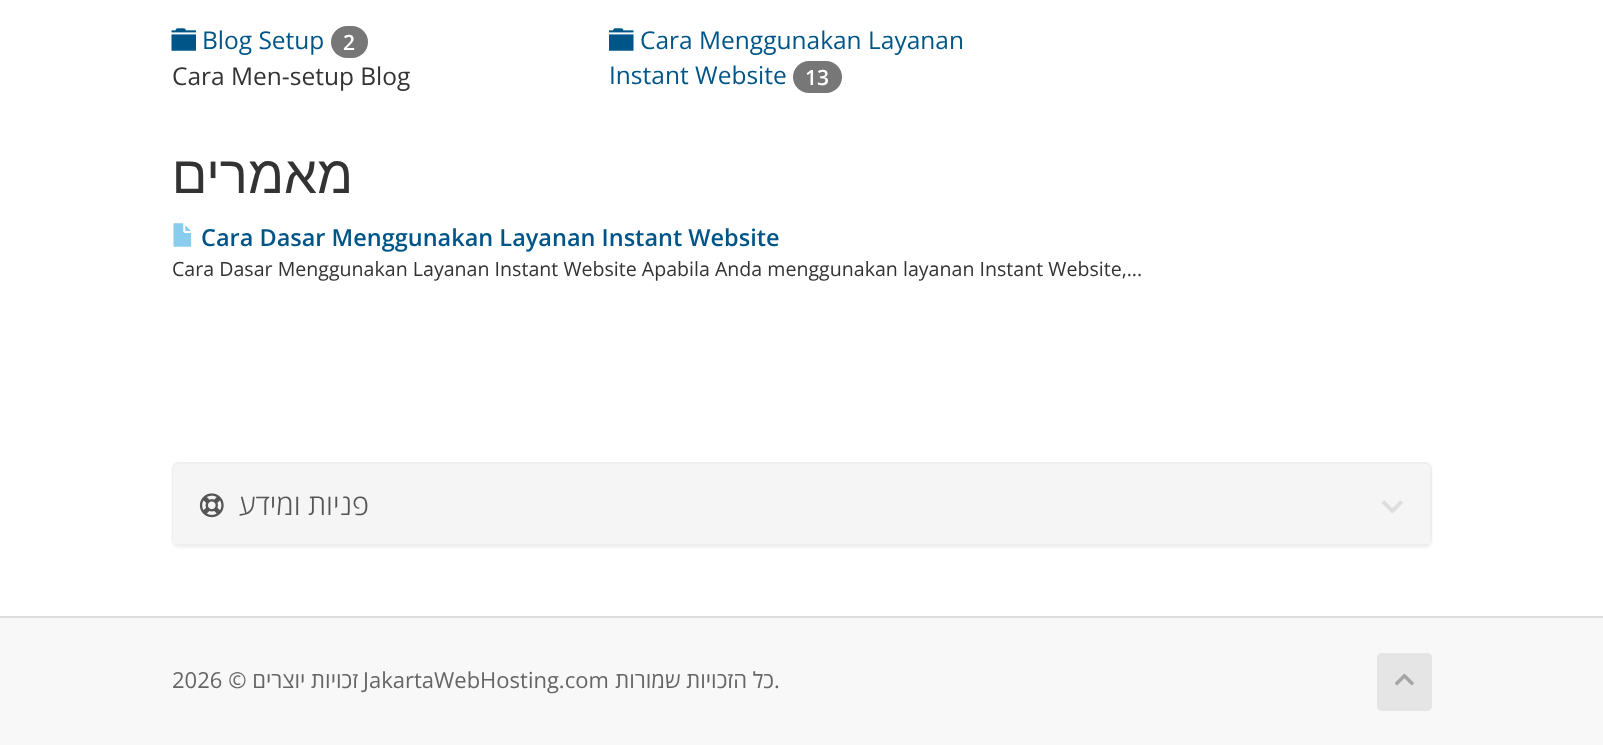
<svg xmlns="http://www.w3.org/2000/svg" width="1603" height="745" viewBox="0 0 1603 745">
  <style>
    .t1 { font: 24.5px Open Sans; fill: #058; }
    .t2 { font: 600 21px Open Sans; fill: #fff; }
    .t3 { font: 24.5px Open Sans; fill: #333; }
    .t4 { font: 52.5px Liberation Sans; direction: rtl; fill: #333; }
    .t5 { font: 600 23.5px Open Sans; fill: #058; }
    .t6 { font: 19.6px Open Sans; fill: #333; }
    .t7 { font: 300 29px Open Sans; direction: rtl; fill: #555; }
    .t8 { font: 22px Open Sans; fill: #666; }
    .t9 { font: 22px Open Sans; direction: rtl; fill: #666; }
  </style>
  <rect width="100%" height="100%" fill="#f8f8f8"/>
  <rect x="0" y="0" width="1603" height="616" fill="#fff"/>
  <image x="171" y="28" width="25" height="23" href="images/1.png"/>
  <text x="202" y="49" class="t1">Blog Setup</text>
  <rect x="331" y="26" width="37" height="32" rx="16" fill="#777"/>
  <text x="343" y="50" class="t2">2</text>
  <text x="172" y="85" class="t3">Cara Men-setup Blog</text>
  <image x="609" y="28" width="25" height="23" href="images/2.png"/>
  <text x="640" y="49" class="t1">Cara Menggunakan Layanan</text>
  <text x="609" y="84" class="t1">Instant Website</text>
  <rect x="793" y="61" width="49" height="32" rx="16" fill="#777"/>
  <text x="805" y="85" class="t2">13</text>
  <text x="353" y="193" class="t4">מאמרים</text>
  <image x="173" y="223" width="19" height="24" href="images/3.png"/>
  <text x="201" y="246" class="t5">Cara Dasar Menggunakan Layanan Instant Website</text>
  <text x="172" y="276" class="t6">Cara Dasar Menggunakan Layanan Instant Website Apabila Anda menggunakan layanan Instant Website,...</text>
  <rect x="172" y="464" width="1260" height="84" rx="7" fill="#0000000d" filter="blur(1px)"/>
  <rect x="173" y="463" width="1258" height="82" rx="6" fill="none" stroke="#eee" stroke-width="2"/>
  <path d="M178 464H1425C1428 464 1430 466 1430 469V544H173V469C173 466 175 464 178 464Z" fill="#f5f5f5"/>
  <image x="199" y="493" width="25" height="25" href="images/4.png"/>
  <text x="369" y="515" class="t7">פניות ומידע</text>
  <image x="1382" y="500" width="21" height="14" href="images/5.png"/>
  <rect x="0" y="616" width="1603" height="2" fill="#ddd"/>
  <text x="172" y="688" class="t8">2026</text>
  <text x="358" y="688" class="t9">זכויות יוצרים ©</text>
  <text x="363" y="688" class="t8">JakartaWebHosting.com</text>
  <text x="774" y="688" class="t9">כל הזכויות שמורות</text>
  <text x="774" y="688" class="t8">.</text>
  <rect x="1377" y="653" width="55" height="58" rx="5" fill="#e5e5e5"/>
  <image x="1395" y="673" width="19" height="13" href="images/6.png"/>
</svg>
